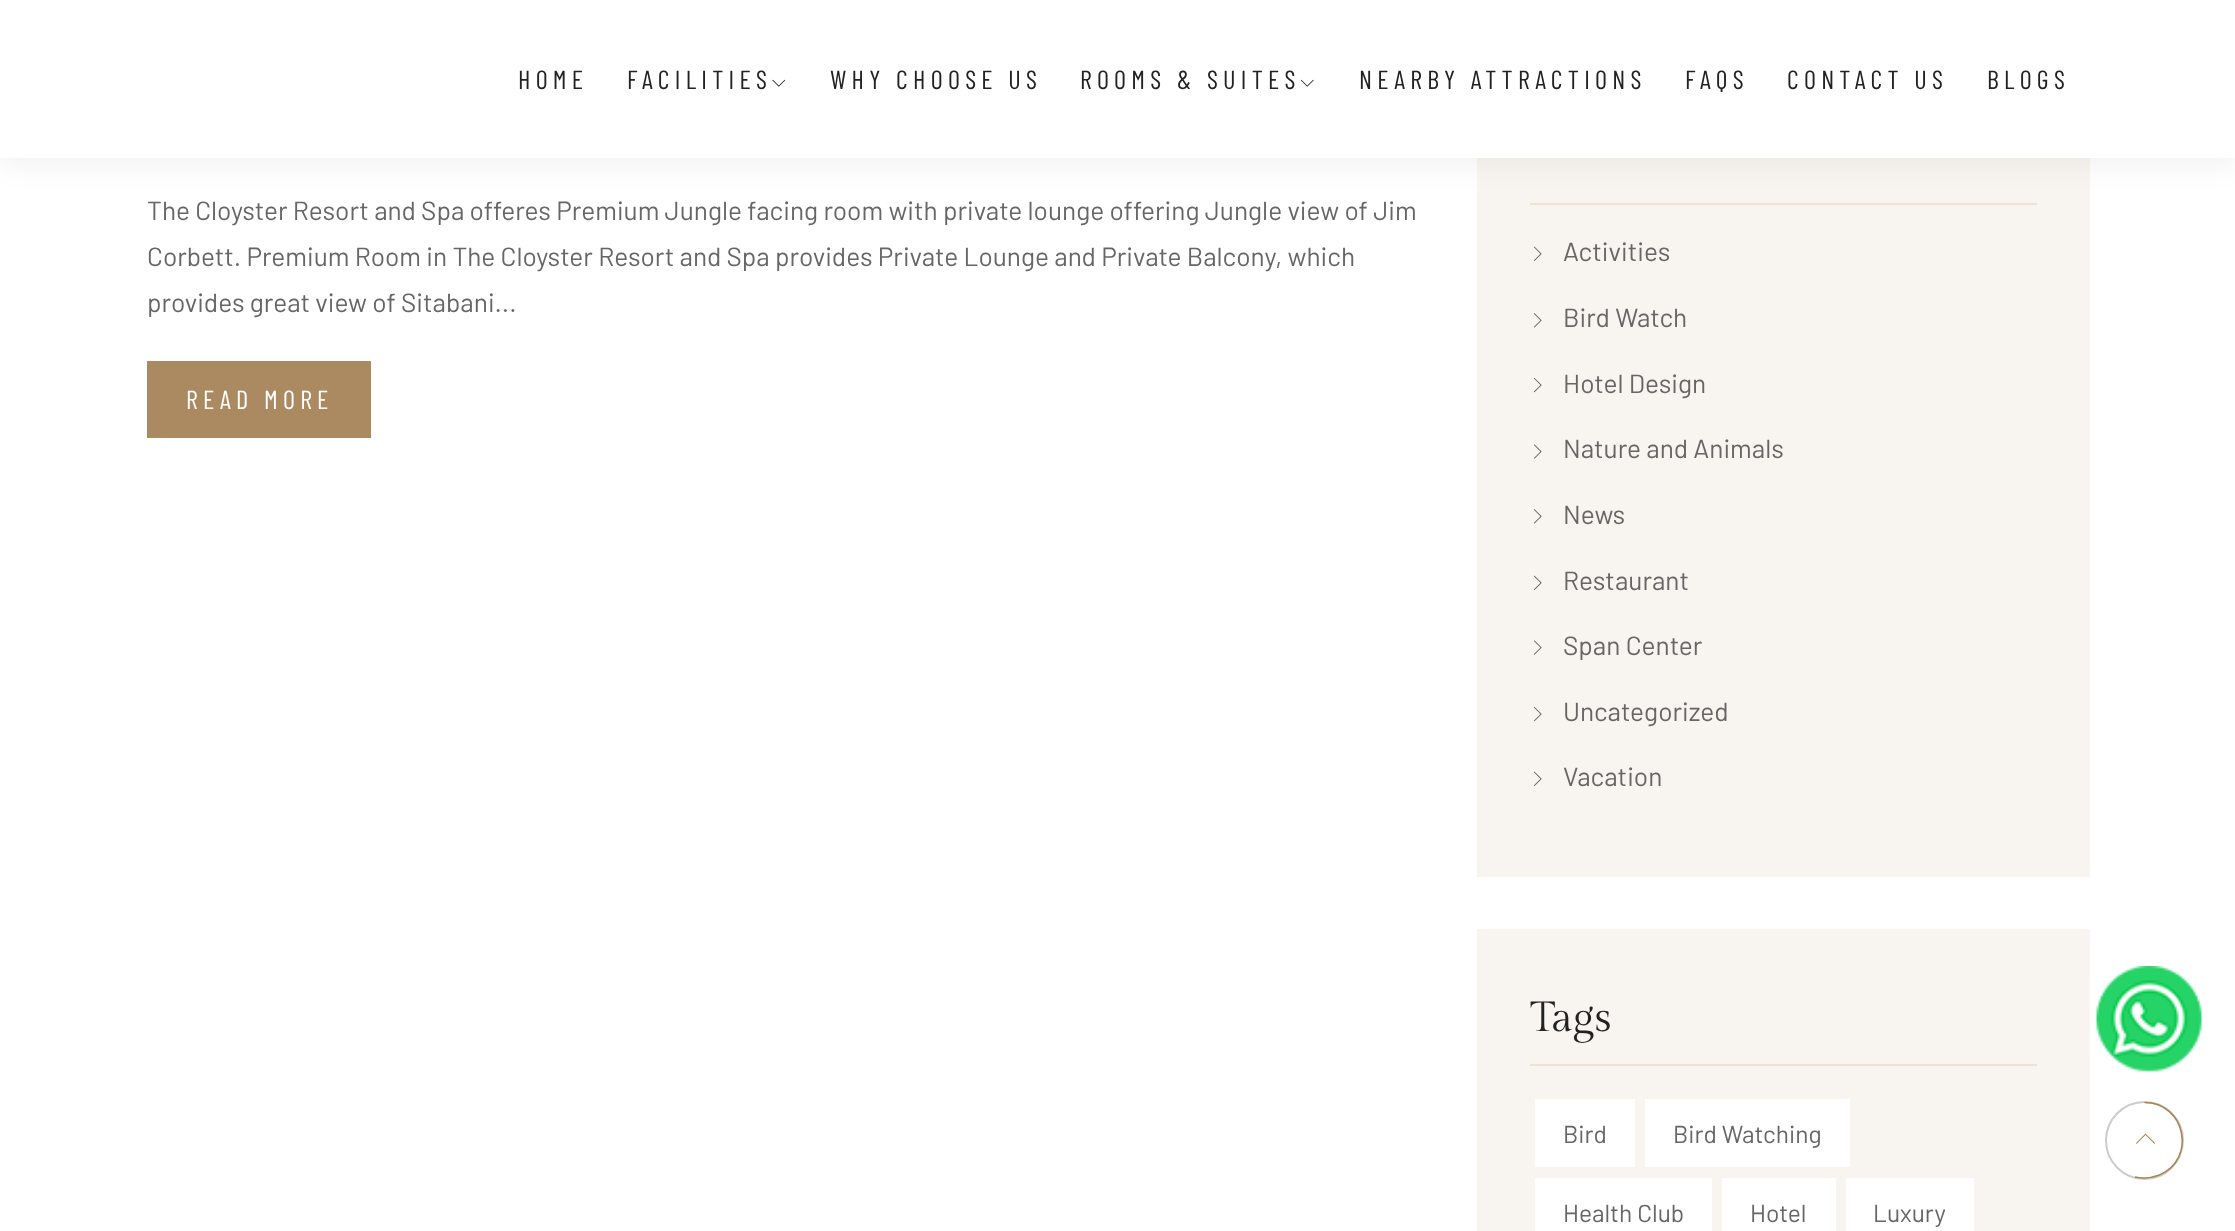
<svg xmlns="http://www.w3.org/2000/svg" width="2235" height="1231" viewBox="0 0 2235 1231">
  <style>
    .t1 { font: 26.25px Barlow Condensed; letter-spacing: 5.25px; fill: #222; }
    .t2 { font: 26.25px Barlow; fill: #666; }
    .t3 { font: 26.25px Barlow Condensed; letter-spacing: 5.25px; fill: #fff; }
    .t4 { font: 42px Gilda Display; fill: #222; }
    .t5 { font: 24.5px Barlow; fill: #666; }
  </style>
  <rect width="100%" height="100%" fill="#fff"/>
  <rect x="1477" y="158" width="613" height="719" fill="#f8f5f0"/>
  <rect x="1530" y="203" width="507" height="2" fill="#eee3d0"/>
  <rect x="0" y="9" width="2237" height="157" fill="#0000000d" filter="blur(13px)"/>
  <rect x="0" y="0" width="2235" height="158" fill="#fff"/>
  <text x="518" y="89" class="t1">HOME</text>
  <text x="627" y="89" class="t1">FACILITIES</text>
  <image x="772" y="79" width="14" height="8" href="images/1.png"/>
  <text x="830" y="89" class="t1">WHY CHOOSE US</text>
  <text x="1080" y="89" class="t1">ROOMS &amp; SUITES</text>
  <image x="1300" y="79" width="14" height="8" href="images/2.png"/>
  <text x="1359" y="89" class="t1">NEARBY ATTRACTIONS</text>
  <text x="1685" y="89" class="t1">FAQS</text>
  <text x="1787" y="89" class="t1">CONTACT US</text>
  <text x="1987" y="89" class="t1">BLOGS</text>
  <text x="147" y="220" class="t2">The Cloyster Resort and Spa offeres Premium Jungle facing room with private lounge offering Jungle view of Jim</text>
  <text x="147" y="266" class="t2">Corbett. Premium Room in The Cloyster Resort and Spa provides Private Lounge and Private Balcony, which</text>
  <text x="147" y="312" class="t2">provides great view of Sitabani...</text>
  <rect x="147" y="361" width="224" height="77" fill="#ab8a62"/>
  <text x="186" y="409" class="t3">READ MORE</text>
  <image x="1533" y="246" width="9" height="15" href="images/3.png"/>
  <text x="1563" y="261" class="t2">Activities</text>
  <image x="1533" y="313" width="9" height="15" href="images/4.png"/>
  <text x="1563" y="327" class="t2">Bird Watch</text>
  <image x="1533" y="377" width="9" height="16" href="images/5.png"/>
  <text x="1563" y="393" class="t2">Hotel Design</text>
  <image x="1533" y="444" width="9" height="15" href="images/6.png"/>
  <text x="1563" y="458" class="t2">Nature and Animals</text>
  <image x="1533" y="509" width="9" height="15" href="images/4.png"/>
  <text x="1563" y="524" class="t2">News</text>
  <image x="1533" y="575" width="9" height="15" href="images/3.png"/>
  <text x="1563" y="590" class="t2">Restaurant</text>
  <image x="1533" y="640" width="9" height="15" href="images/6.png"/>
  <text x="1563" y="655" class="t2">Span Center</text>
  <image x="1533" y="706" width="9" height="16" href="images/5.png"/>
  <text x="1563" y="721" class="t2">Uncategorized</text>
  <image x="1533" y="771" width="9" height="15" href="images/3.png"/>
  <text x="1563" y="786" class="t2">Vacation</text>
  <rect x="1477" y="929" width="613" height="302" fill="#f8f5f0"/>
  <rect x="1530" y="1064" width="507" height="2" fill="#eee3d0"/>
  <text x="1530" y="1031" class="t4">Tags</text>
  <rect x="1535" y="1099" width="100" height="68" fill="#fff"/>
  <text x="1563" y="1143" class="t5">Bird</text>
  <rect x="1645" y="1099" width="205" height="68" fill="#fff"/>
  <text x="1673" y="1143" class="t5">Bird Watching</text>
  <rect x="1535" y="1178" width="177" height="53" fill="#fff"/>
  <text x="1563" y="1222" class="t5">Health Club</text>
  <rect x="1722" y="1178" width="114" height="53" fill="#fff"/>
  <text x="1750" y="1222" class="t5">Hotel</text>
  <rect x="1846" y="1178" width="128" height="53" fill="#fff"/>
  <text x="1873" y="1222" class="t5">Luxury</text>
  <image x="2096" y="966" width="106" height="106" href="images/7.png"/>
  <circle cx="2144.5" cy="1140.5" r="38.5" fill="none" stroke="#ccc" stroke-width="2"/>
  <path d="M2144.5 1102.5C2185.5 1102.5 2197 1159 2159.5 1175C2151.5 1178 2143 1179 2135 1177" fill="none" stroke="#aa8453" stroke-width="1.5"/>
  <path d="M2155 1143L2154.5 1144L2145.5 1135L2136.5 1144L2136 1143L2145.5 1133.5Z" fill="#aa8453"/>
</svg>
